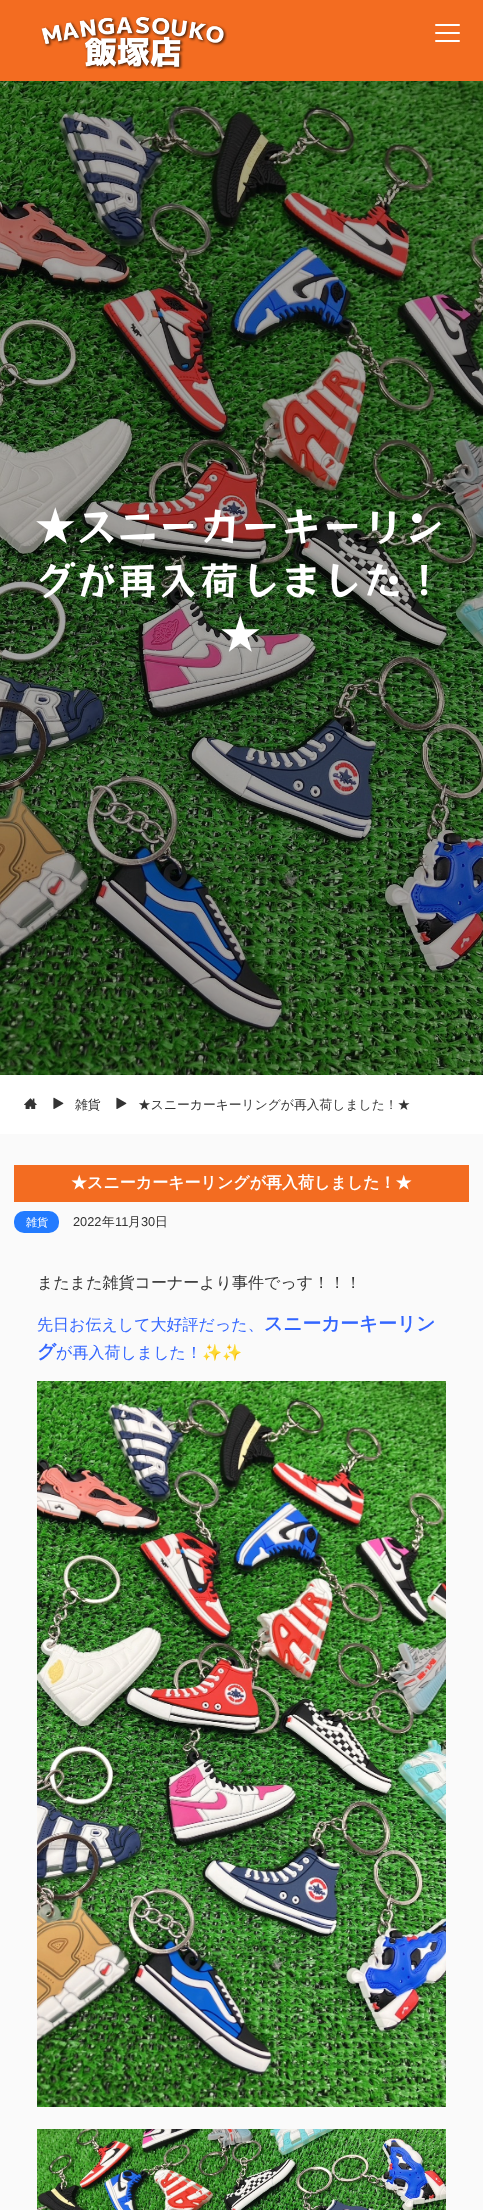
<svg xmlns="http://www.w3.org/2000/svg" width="483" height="2210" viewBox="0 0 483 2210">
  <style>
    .t1 { font: 38.6px RocknRoll One; letter-spacing: 2.4px; fill: #fff; }
    .t2 { font: 500 12.8px WenQuanYi Zen Hei; fill: #333; }
    .t3 { font: bold 16px WenQuanYi Zen Hei; fill: #fff; }
    .t4 { font: 500 11px WenQuanYi Zen Hei; fill: #fff; }
    .t5 { font: 12.8px Liberation Sans; fill: #333; }
    .t6 { font: 500 16px WenQuanYi Zen Hei; fill: #333; }
    .t7 { font: 500 16px WenQuanYi Zen Hei; fill: #36f; }
    .t8 { font: bold 18.75px WenQuanYi Zen Hei; fill: #36f; }
    .t9 { font: 16px Noto Color Emoji; fill: #36f; }
  </style>
  <rect width="100%" height="100%" fill="#fff"/>
  <rect x="0" y="0" width="483" height="81" fill="#f36c21"/>
  <image x="41" y="16" width="186" height="53" href="images/1.png"/>
  <rect x="435" y="32" width="25" height="2" rx="1" fill="#fff"/>
  <rect x="435" y="24" width="25" height="2" rx="1" fill="#fff"/>
  <rect x="435" y="40" width="25" height="2" rx="1" fill="#fff"/>
  <image x="0" y="81" width="483" height="994" href="images/2.png"/>
  <text x="36" y="541" class="t1">★スニーカーキーリン</text>
  <text x="36" y="595" class="t1">グが再入荷しました！</text>
  <text x="221" y="649" class="t1">★</text>
  <image x="24" y="1098" width="13" height="11" href="images/3.png"/>
  <image x="53" y="1097" width="11" height="12" href="images/4.png"/>
  <text x="75" y="1109" class="t2">雑貨</text>
  <image x="116" y="1097" width="11" height="12" href="images/4.png"/>
  <text x="138" y="1109" class="t2">★スニーカーキーリングが再入荷しました！★</text>
  <rect x="0" y="1134" width="483" height="1076" fill="#fafafa"/>
  <rect x="14" y="1165" width="455" height="37" fill="#f36c21"/>
  <text x="71" y="1188" class="t3">★スニーカーキーリングが再入荷しました！★</text>
  <rect x="14" y="1211" width="45" height="22" rx="10" fill="#237bff"/>
  <text x="26" y="1226" class="t4">雑貨</text>
  <text x="73" y="1226" class="t5">2022</text>
  <text x="102" y="1226" class="t2">年</text>
  <text x="115" y="1226" class="t5">11</text>
  <text x="128" y="1226" class="t2">月</text>
  <text x="141" y="1226" class="t5">30</text>
  <text x="155" y="1226" class="t2">日</text>
  <text x="37" y="1288" class="t6">またまた雑貨コーナーより事件でっす！！！</text>
  <text x="37" y="1330" class="t7">先日お伝えして大好評だった、</text>
  <text x="264" y="1330" class="t8">スニーカーキーリン</text>
  <text x="37" y="1358" class="t8">グ</text>
  <text x="56" y="1358" class="t7">が再入荷しました！</text>
  <text x="202" y="1358" class="t9">✨✨</text>
  <image x="37" y="1381" width="409" height="726" href="images/5.png"/>
  <image x="37" y="2129" width="409" height="81" href="images/6.png"/>
</svg>
